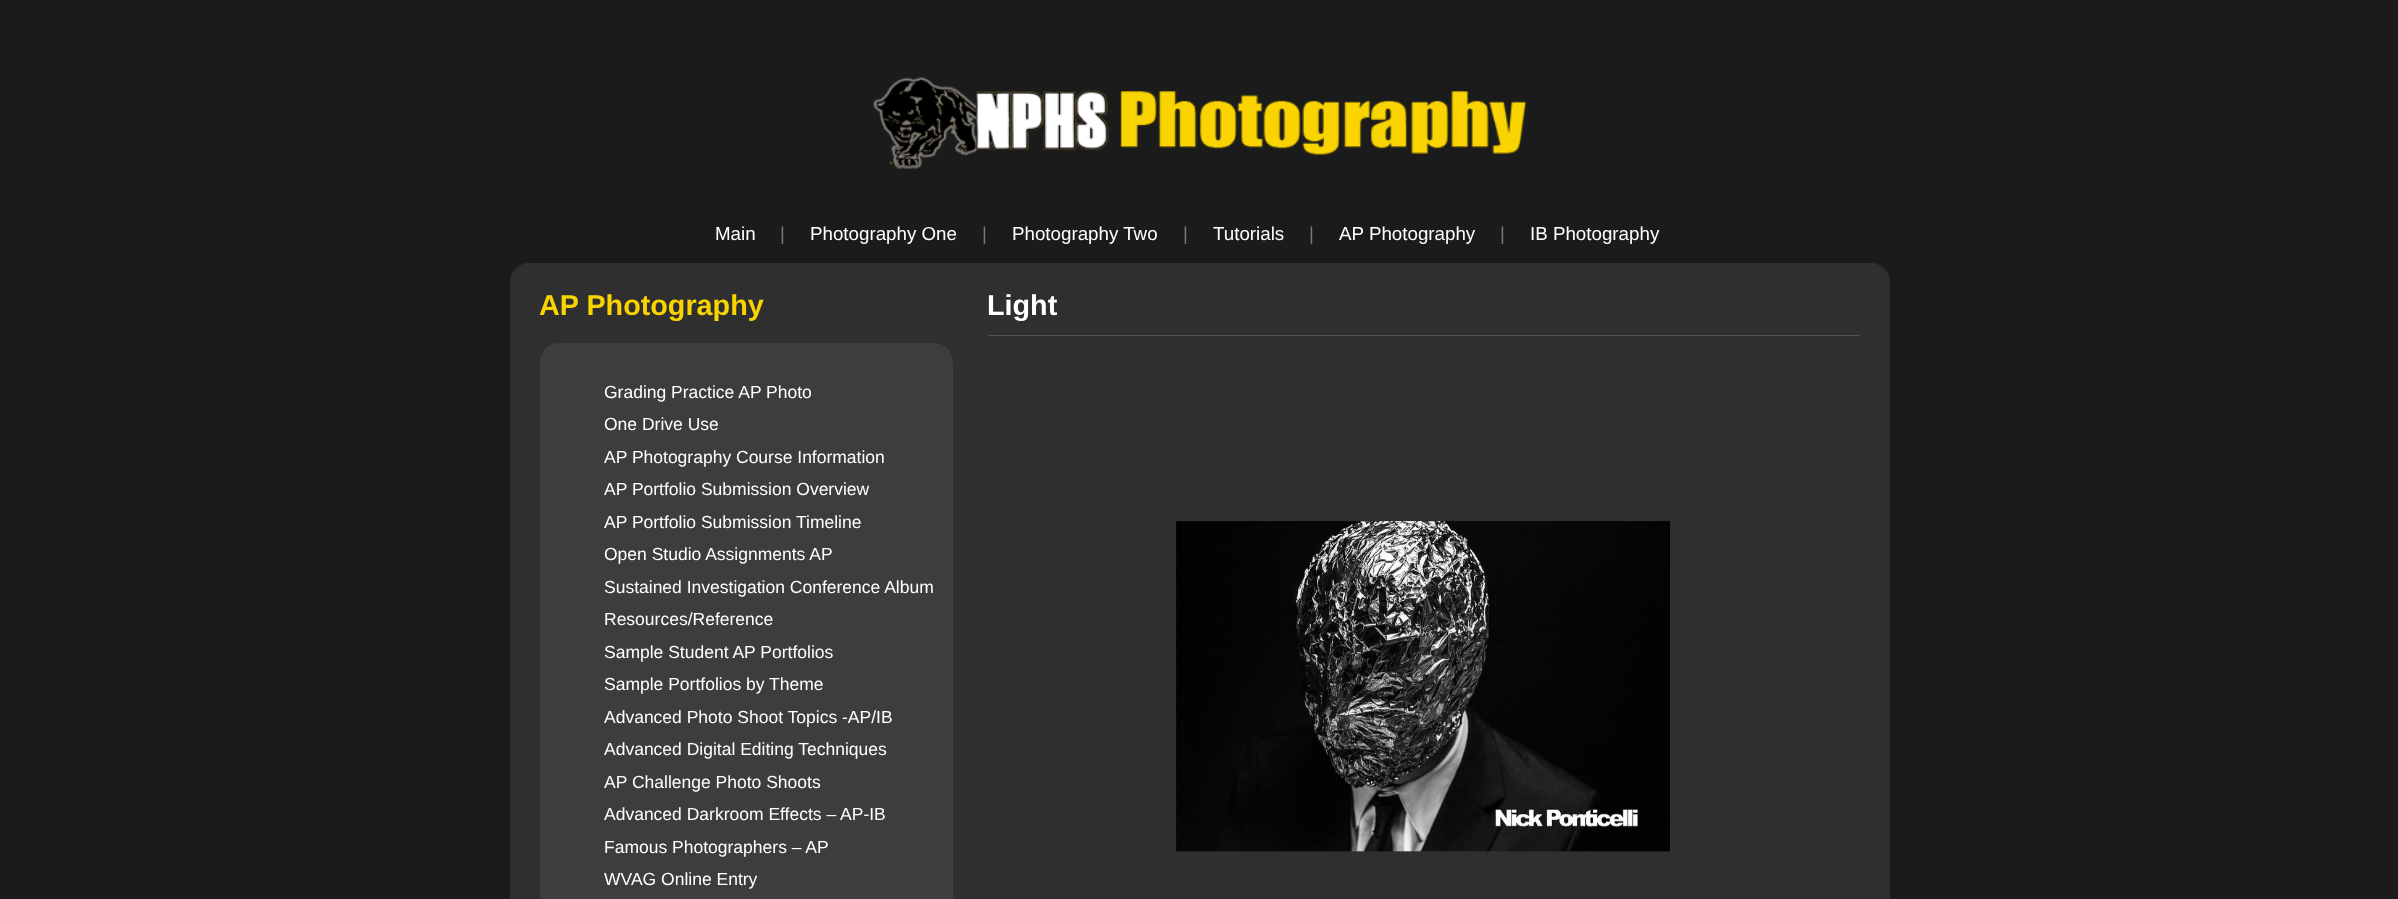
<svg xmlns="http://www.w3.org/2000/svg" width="2398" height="899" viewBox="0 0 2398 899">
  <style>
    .t1 { font: 18.75px Liberation Sans; fill: #fff; }
    .t2 { font: 18.75px Liberation Sans; fill: #787878; }
    .t3 { font: bold 28.75px Liberation Sans; fill: #fad400; }
    .t4 { font: 17.5px Liberation Sans; fill: #fff; }
    .t5 { font: bold 28.75px Liberation Sans; fill: #fff; }
  </style>
  <rect width="100%" height="100%" fill="#1b1b1b"/>
  <image x="873" y="77" width="654" height="92" href="images/1.png"/>
  <text x="715" y="240" class="t1">Main</text>
  <text x="780" y="240" class="t2">|</text>
  <text x="810" y="240" class="t1">Photography One</text>
  <text x="982" y="240" class="t2">|</text>
  <text x="1012" y="240" class="t1">Photography Two</text>
  <text x="1183" y="240" class="t2">|</text>
  <text x="1213" y="240" class="t1">Tutorials</text>
  <text x="1309" y="240" class="t2">|</text>
  <text x="1339" y="240" class="t1">AP Photography</text>
  <text x="1500" y="240" class="t2">|</text>
  <text x="1530" y="240" class="t1">IB Photography</text>
  <rect x="510" y="263" width="1380" height="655" rx="19" fill="#2f2f2f"/>
  <text x="539" y="315" class="t3">AP Photography</text>
  <rect x="540" y="343" width="413" height="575" rx="19" fill="#3d3d3d"/>
  <text x="604" y="398" class="t4">Grading Practice AP Photo</text>
  <text x="604" y="430" class="t4">One Drive Use</text>
  <text x="604" y="463" class="t4">AP Photography Course Information</text>
  <text x="604" y="495" class="t4">AP Portfolio Submission Overview</text>
  <text x="604" y="528" class="t4">AP Portfolio Submission Timeline</text>
  <text x="604" y="560" class="t4">Open Studio Assignments AP</text>
  <text x="604" y="593" class="t4">Sustained Investigation Conference Album</text>
  <text x="604" y="625" class="t4">Resources/Reference</text>
  <text x="604" y="658" class="t4">Sample Student AP Portfolios</text>
  <text x="604" y="690" class="t4">Sample Portfolios by Theme</text>
  <text x="604" y="723" class="t4">Advanced Photo Shoot Topics -AP/IB</text>
  <text x="604" y="755" class="t4">Advanced Digital Editing Techniques</text>
  <text x="604" y="788" class="t4">AP Challenge Photo Shoots</text>
  <text x="604" y="820" class="t4">Advanced Darkroom Effects – AP-IB</text>
  <text x="604" y="853" class="t4">Famous Photographers – AP</text>
  <text x="604" y="885" class="t4">WVAG Online Entry</text>
  <text x="987" y="315" class="t5">Light</text>
  <rect x="988" y="335" width="872" height="1" fill="#525252"/>
  <image x="1176" y="521" width="494" height="331" href="images/2.png"/>
</svg>
